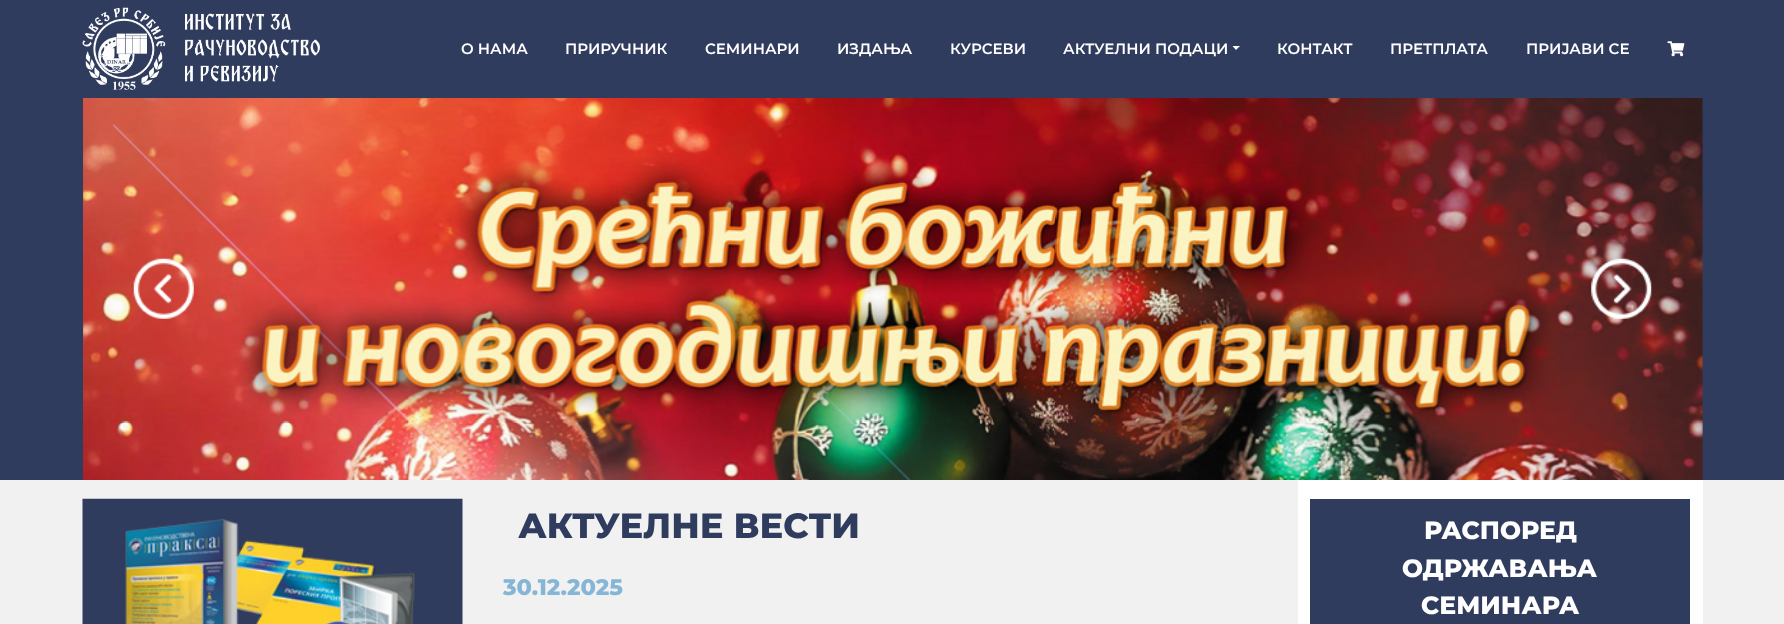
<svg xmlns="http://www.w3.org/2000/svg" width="1784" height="624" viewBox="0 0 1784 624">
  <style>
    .t1 { font: 600 15px Montserrat; fill: #fff; }
    .t2 { font: 800 35px Montserrat; fill: #303c5e; }
    .t3 { font: 800 22.5px Montserrat; fill: #85b6d6; }
    .t4 { font: 800 25px Montserrat; fill: #fff; }
  </style>
  <rect width="100%" height="100%" fill="#303c5e"/>
  <image x="82" y="7" width="238" height="83" href="images/1.png"/>
  <text x="461" y="54" class="t1">О НАМА</text>
  <text x="565" y="54" class="t1">ПРИРУЧНИК</text>
  <text x="705" y="54" class="t1">СЕМИНАРИ</text>
  <text x="837" y="54" class="t1">ИЗДАЊА</text>
  <text x="950" y="54" class="t1">КУРСЕВИ</text>
  <text x="1063" y="54" class="t1">АКТУЕЛНИ ПОДАЦИ</text>
  <path d="M1232.5 46H1240L1236 50Z" fill="#fff"/>
  <text x="1277" y="54" class="t1">КОНТАКТ</text>
  <text x="1390" y="54" class="t1">ПРЕТПЛАТА</text>
  <text x="1526" y="54" class="t1">ПРИЈАВИ СЕ</text>
  <image x="1667" y="41" width="18" height="16" href="images/2.png"/>
  <image x="83" y="98" width="1620" height="382" href="images/3.png"/>
  <image x="133" y="258" width="61" height="61" href="images/4.png"/>
  <image x="1591" y="258" width="61" height="61" href="images/5.png"/>
  <rect x="0" y="480" width="1784" height="144" fill="#f1f1f1"/>
  <image x="82" y="498" width="381" height="126" href="images/6.png"/>
  <text x="518" y="538" class="t2">АКТУЕЛНЕ ВЕСТИ</text>
  <text x="503" y="595" class="t3">30.12.2025</text>
  <rect x="1298" y="480" width="405" height="144" fill="#fff"/>
  <rect x="1310" y="499" width="380" height="125" fill="#303c5e"/>
  <text x="1424" y="539" class="t4">РАСПОРЕД</text>
  <text x="1402" y="577" class="t4">ОДРЖАВАЊА</text>
  <text x="1421" y="614" class="t4">СЕМИНАРА</text>
</svg>
